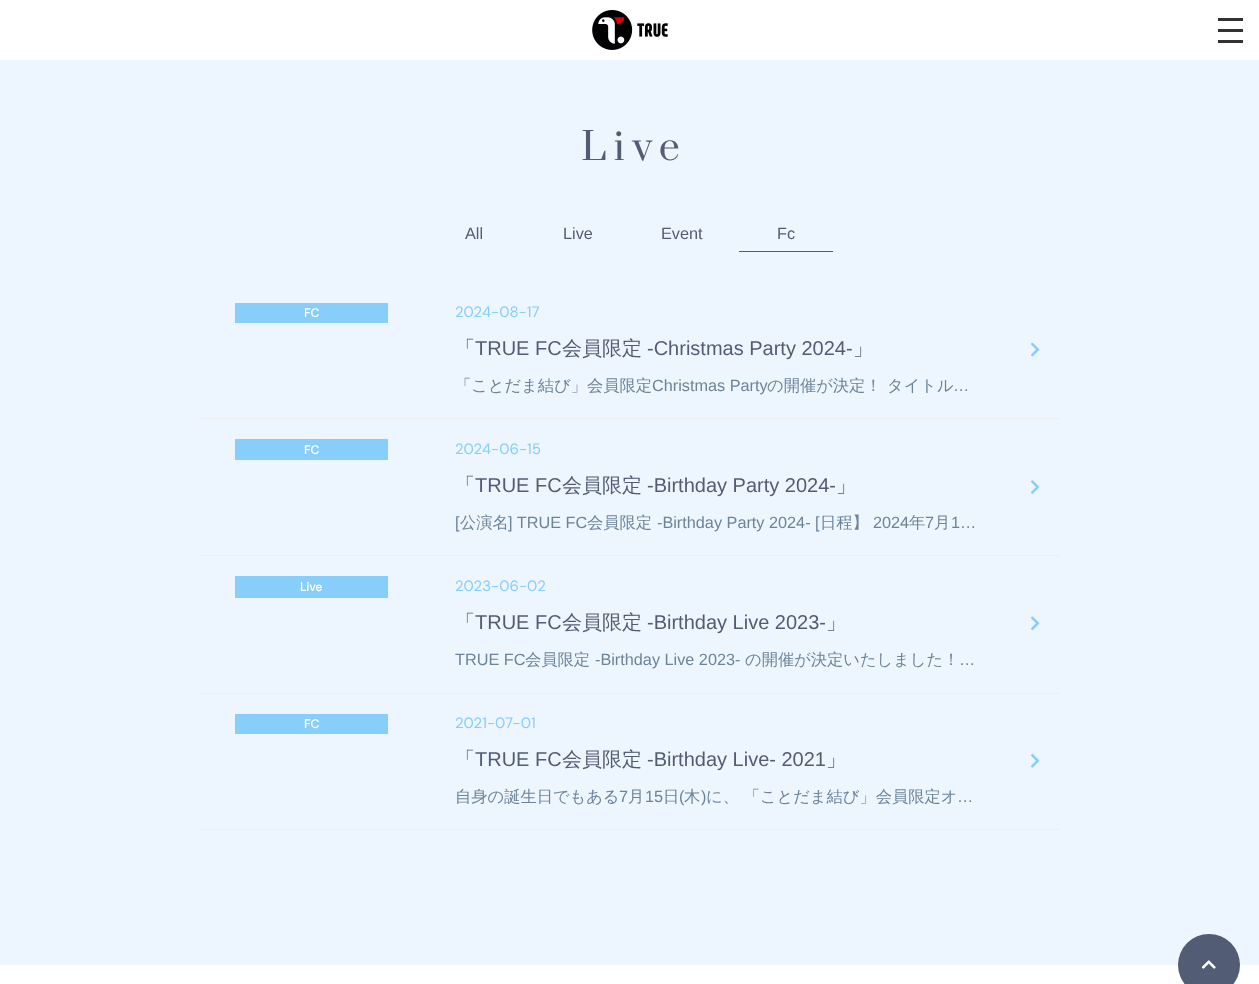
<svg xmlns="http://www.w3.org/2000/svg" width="1259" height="984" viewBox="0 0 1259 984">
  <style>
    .t1 { font: 37.5px Prata; letter-spacing: 7.5px; fill: #525c74; }
    .t2 { font: 16.25px Liberation Sans; fill: #525c74; }
    .t3 { font: bold 12px DM Sans; fill: #fff; }
    .t4 { font: 15px DM Sans; fill: #87cefa; }
    .t5 { font: 500 20px WenQuanYi Zen Hei; fill: #525c74; }
    .t6 { font: 20px Liberation Sans; fill: #525c74; }
    .t7 { font: 500 16.25px WenQuanYi Zen Hei; fill: #6c839a; }
    .t8 { font: 16.25px Liberation Sans; fill: #6c839a; }
  </style>
  <rect width="100%" height="100%" fill="#edf6ff"/>
  <rect x="0" y="0" width="1259" height="60" fill="#fff"/>
  <image x="592" y="10" width="76" height="40" href="images/1.png"/>
  <rect x="1218" y="18" width="25" height="3" fill="#323232"/>
  <rect x="1218" y="29" width="25" height="3" fill="#323232"/>
  <rect x="1218" y="40" width="25" height="3" fill="#323232"/>
  <text x="581" y="160" class="t1">Live</text>
  <text x="465" y="239" class="t2">All</text>
  <text x="563" y="239" class="t2">Live</text>
  <text x="661" y="239" class="t2">Event</text>
  <text x="777" y="239" class="t2">Fc</text>
  <rect x="739" y="251" width="94" height="1" fill="#525c74"/>
  <rect x="200" y="418" width="860" height="1" fill="#eceef0"/>
  <rect x="235" y="303" width="153" height="20" fill="#87cefa"/>
  <text x="304" y="317" class="t3">FC</text>
  <text x="455" y="317" class="t4">2024-08-17</text>
  <text x="455" y="355" class="t5">「</text>
  <text x="475" y="355" class="t6">TRUE FC</text>
  <text x="562" y="355" class="t5">会員限定</text>
  <text x="647" y="355" class="t6">-Christmas Party 2024-</text>
  <text x="853" y="355" class="t5">」</text>
  <text x="455" y="391" class="t7">「ことだま結び」会員限定</text>
  <text x="652" y="391" class="t8">Christmas Party</text>
  <text x="767" y="391" class="t7">の開催が決定！</text>
  <text x="887" y="391" class="t7">タイトル</text>
  <text x="953" y="391" class="t8">…</text>
  <image x="1031" y="342" width="9" height="15" href="images/2.png"/>
  <rect x="200" y="555" width="860" height="1" fill="#eceef0"/>
  <rect x="235" y="439" width="153" height="21" fill="#87cefa"/>
  <text x="304" y="454" class="t3">FC</text>
  <text x="455" y="454" class="t4">2024-06-15</text>
  <text x="455" y="492" class="t5">「</text>
  <text x="475" y="492" class="t6">TRUE FC</text>
  <text x="562" y="492" class="t5">会員限定</text>
  <text x="647" y="492" class="t6">-Birthday Party 2024-</text>
  <text x="836" y="492" class="t5">」</text>
  <text x="455" y="528" class="t8">[</text>
  <text x="460" y="528" class="t7">公演名</text>
  <text x="508" y="528" class="t8">] TRUE FC</text>
  <text x="587" y="528" class="t7">会員限定</text>
  <text x="657" y="528" class="t8">-Birthday Party 2024- [</text>
  <text x="820" y="528" class="t7">日程】</text>
  <text x="873" y="528" class="t8">2024</text>
  <text x="909" y="528" class="t7">年</text>
  <text x="925" y="528" class="t8">7</text>
  <text x="934" y="528" class="t7">月</text>
  <text x="951" y="528" class="t8">1…</text>
  <image x="1031" y="480" width="9" height="14" href="images/3.png"/>
  <rect x="200" y="693" width="860" height="1" fill="#eceef0"/>
  <rect x="235" y="576" width="153" height="22" fill="#87cefa"/>
  <text x="300" y="591" class="t3">Live</text>
  <text x="455" y="591" class="t4">2023-06-02</text>
  <text x="455" y="629" class="t5">「</text>
  <text x="475" y="629" class="t6">TRUE FC</text>
  <text x="562" y="629" class="t5">会員限定</text>
  <text x="647" y="629" class="t6">-Birthday Live 2023-</text>
  <text x="826" y="629" class="t5">」</text>
  <text x="455" y="665" class="t8">TRUE FC</text>
  <text x="525" y="665" class="t7">会員限定</text>
  <text x="595" y="665" class="t8">-Birthday Live 2023-</text>
  <text x="745" y="665" class="t7">の開催が決定いたしました！</text>
  <text x="959" y="665" class="t8">…</text>
  <image x="1031" y="616" width="9" height="15" href="images/4.png"/>
  <rect x="200" y="829" width="860" height="1" fill="#eceef0"/>
  <rect x="235" y="714" width="153" height="20" fill="#87cefa"/>
  <text x="304" y="728" class="t3">FC</text>
  <text x="455" y="728" class="t4">2021-07-01</text>
  <text x="455" y="766" class="t5">「</text>
  <text x="475" y="766" class="t6">TRUE FC</text>
  <text x="562" y="766" class="t5">会員限定</text>
  <text x="647" y="766" class="t6">-Birthday Live- 2021</text>
  <text x="826" y="766" class="t5">」</text>
  <text x="455" y="802" class="t7">自身の誕生日でもある</text>
  <text x="619" y="802" class="t8">7</text>
  <text x="628" y="802" class="t7">月</text>
  <text x="645" y="802" class="t8">15</text>
  <text x="663" y="802" class="t7">日</text>
  <text x="679" y="802" class="t8">(</text>
  <text x="684" y="802" class="t7">木</text>
  <text x="701" y="802" class="t8">)</text>
  <text x="706" y="802" class="t7">に、 「ことだま結び」会員限定オ</text>
  <text x="957" y="802" class="t8">…</text>
  <image x="1031" y="753" width="9" height="15" href="images/5.png"/>
  <rect x="0" y="965" width="1259" height="19" fill="#fff"/>
  <circle cx="1209" cy="965" r="31" fill="#525c74"/>
  <image x="1201" y="960" width="15" height="9" href="images/6.png"/>
</svg>
